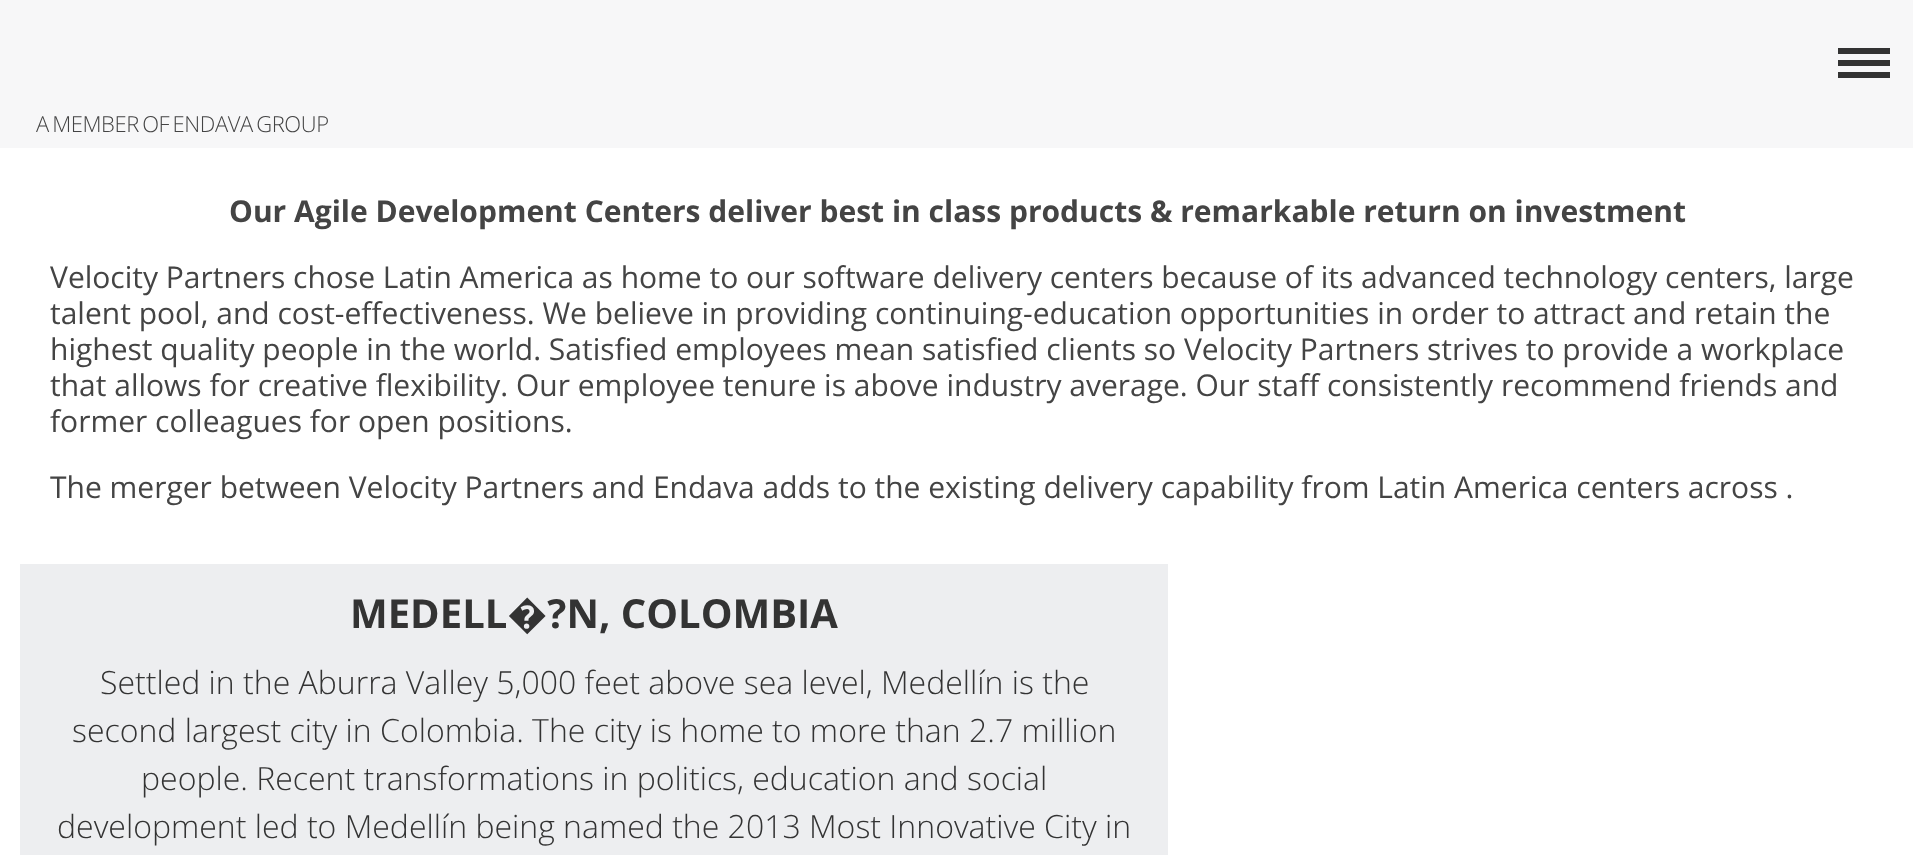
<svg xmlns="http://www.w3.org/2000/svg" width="1913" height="855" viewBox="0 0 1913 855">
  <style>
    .t1 { font: 300 22px Open Sans; letter-spacing: -0.4px; fill: #444; }
    .t2 { font: bold 30px Open Sans; fill: #444; }
    .t3 { font: 30px Open Sans; fill: #444; }
    .t4 { font: bold 40px Open Sans; fill: #333; }
    .t5 { font: 300 32px Open Sans; fill: #333; }
  </style>
  <rect width="100%" height="100%" fill="#fff"/>
  <rect x="0" y="0" width="1913" height="148" fill="#f7f7f8"/>
  <rect x="1838" y="60" width="52" height="6" fill="#333"/>
  <rect x="1838" y="48" width="52" height="6" fill="#333"/>
  <rect x="1838" y="72" width="52" height="6" fill="#333"/>
  <text x="36" y="132" word-spacing="-2" class="t1">A MEMBER OF ENDAVA GROUP</text>
  <text x="229" y="222" class="t2">Our Agile Development Centers deliver best in class products &amp; remarkable return on investment</text>
  <text x="50" y="288" class="t3">Velocity Partners chose Latin America as home to our software delivery centers because of its advanced technology centers, large</text>
  <text x="50" y="324" class="t3">talent pool, and cost-effectiveness. We believe in providing continuing-education opportunities in order to attract and retain the</text>
  <text x="50" y="360" class="t3">highest quality people in the world. Satisfied employees mean satisfied clients so Velocity Partners strives to provide a workplace</text>
  <text x="50" y="396" class="t3">that allows for creative flexibility. Our employee tenure is above industry average. Our staff consistently recommend friends and</text>
  <text x="50" y="432" class="t3">former colleagues for open positions.</text>
  <text x="50" y="498" class="t3">The merger between Velocity Partners and Endava adds to the existing delivery capability from Latin America centers across .</text>
  <rect x="20" y="564" width="1148" height="291" fill="#edeef0"/>
  <text x="350" y="628" class="t4">MEDELL�?N, COLOMBIA</text>
  <text x="100" y="694" class="t5">Settled in the Aburra Valley 5,000 feet above sea level, Medellín is the</text>
  <text x="72" y="742" class="t5">second largest city in Colombia. The city is home to more than 2.7 million</text>
  <text x="141" y="790" class="t5">people. Recent transformations in politics, education and social</text>
  <text x="57" y="838" class="t5">development led to Medellín being named the 2013 Most Innovative City in</text>
</svg>
